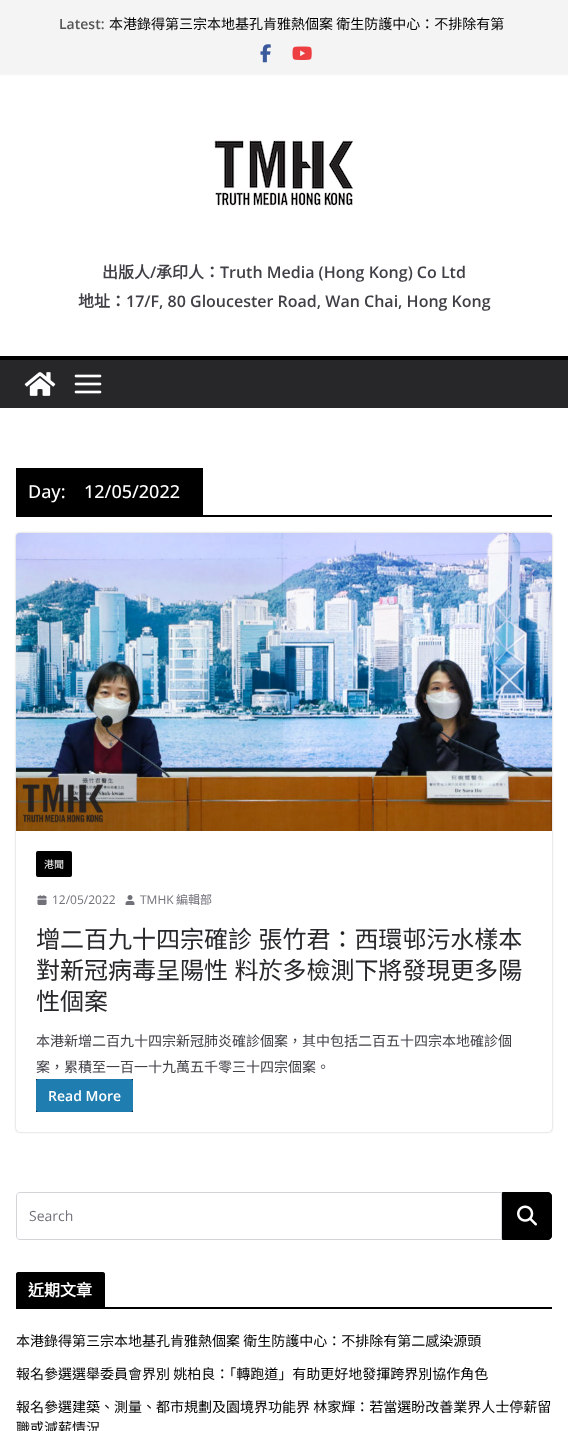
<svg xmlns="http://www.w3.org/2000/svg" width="568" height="1431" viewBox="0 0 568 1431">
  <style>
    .t1 { font: 600 14px Open Sans; fill: #555; }
    .t2 { font: 14px Noto Sans CJK HK; fill: #000; }
    .t3 { font: bold 16px Noto Sans CJK HK; fill: #3f3f46; }
    .t4 { font: 600 16px Open Sans; fill: #3f3f46; }
    .t5 { font: 500 18px Open Sans; fill: #fff; }
    .t6 { font: 10px Noto Sans CJK HK; fill: #fff; }
    .t7 { font: 12px Open Sans; fill: #71717a; }
    .t8 { font: 12px Noto Sans CJK HK; fill: #71717a; }
    .t9 { font: 24px Noto Sans CJK HK; fill: #27272a; }
    .t10 { font: 14px Noto Sans CJK HK; fill: #3f3f46; }
    .t11 { font: 600 14px Open Sans; fill: #fff; }
    .t12 { font: 14px Open Sans; fill: #71717a; }
    .t13 { font: bold 16px Noto Sans CJK HK; fill: #fff; }
  </style>
  <defs>
    <clipPath id="clip1"><path d="M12 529H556V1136H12ZM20 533H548C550 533 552 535 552 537V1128C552 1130 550 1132 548 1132H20C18 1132 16 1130 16 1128V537C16 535 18 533 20 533Z" clip-rule="evenodd"/></clipPath>
  </defs>
  <rect width="100%" height="100%" fill="#fff"/>
  <rect x="0" y="-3" width="568" height="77" fill="#0000001a" filter="blur(1px)"/>
  <rect x="0" y="0" width="568" height="74" fill="#f4f4f5"/>
  <text x="59" y="29" class="t1">Latest:</text>
  <text x="109" y="29" class="t2">本港錄得第三宗本地基孔肯雅熱個案 衛生防護中心：不排除有第</text>
  <image x="260" y="44" width="11" height="19" href="images/1.png"/>
  <image x="292" y="46" width="20" height="14" href="images/2.png"/>
  <image x="214" y="140" width="140" height="66" href="images/3.png"/>
  <text x="102" y="278" class="t3">出版人</text>
  <text x="150" y="278" class="t4">/</text>
  <text x="156" y="278" class="t3">承印人：</text>
  <text x="220" y="278" class="t4">Truth Media (Hong Kong) Co Ltd</text>
  <text x="78" y="307" class="t3">地址：</text>
  <text x="126" y="307" class="t4">17/F, 80 Gloucester Road, Wan Chai, Hong Kong</text>
  <rect x="0" y="360" width="568" height="48" fill="#27272a"/>
  <rect x="0" y="356" width="568" height="4" fill="#000"/>
  <image x="24" y="372" width="32" height="24" href="images/4.png"/>
  <image x="74" y="374" width="28" height="20" href="images/5.png"/>
  <rect x="16" y="515" width="536" height="2" fill="#000"/>
  <rect x="16" y="468" width="187" height="47" fill="#000"/>
  <text x="28" y="498" class="t5">Day:</text>
  <text x="84" y="498" class="t5">12/05/2022</text>
  <g clip-path="url(#clip1)">
    <rect x="16" y="533" width="536" height="599" rx="4" fill="#0000003d" filter="blur(1px)"/>
  </g>
  <image x="16" y="533" width="536" height="298" href="images/6.png"/>
  <rect x="36" y="851" width="36" height="26" rx="2" fill="#000"/>
  <text x="44" y="868" class="t6">港聞</text>
  <image x="37" y="895" width="10" height="10" href="images/7.png"/>
  <text x="52" y="904" class="t7">12/05/2022</text>
  <image x="125" y="895" width="10" height="10" href="images/8.png"/>
  <text x="140" y="904" class="t7">TMHK</text>
  <text x="176" y="904" class="t8">編輯部</text>
  <text x="36" y="948" word-spacing="1" class="t9">增二百九十四宗確診 張竹君：西環邨污水樣本</text>
  <text x="36" y="979" word-spacing="1" class="t9">對新冠病毒呈陽性 料於多檢測下將發現更多陽</text>
  <text x="36" y="1010" class="t9">性個案</text>
  <text x="36" y="1046" class="t10">本港新增二百九十四宗新冠肺炎確診個案，其中包括二百五十四宗本地確診個</text>
  <text x="36" y="1072" class="t10">案，累積至一百一十九萬五千零三十四宗個案。</text>
  <rect x="36" y="1079" width="97" height="33" fill="#000"/>
  <rect x="36" y="1079" width="97" height="33" rx="2" fill="#207daf"/>
  <text x="48" y="1101" class="t11">Read More</text>
  <path d="M20 1192.5H501.5V1239.5H20C18 1239.5 16.5 1238 16.5 1236V1196C16.5 1194 18 1192.5 20 1192.5Z" fill="none" stroke="#d4d4d8"/>
  <text x="29" y="1221" class="t12">Search</text>
  <path d="M502.5 1192.5H548C550 1192.5 551.5 1194 551.5 1196V1236C551.5 1238 550 1239.5 548 1239.5H502.5Z" fill="#000" stroke="#000"/>
  <image x="517" y="1205" width="20" height="21" href="images/9.png"/>
  <rect x="16" y="1307" width="536" height="2" fill="#000"/>
  <path d="M18 1272H103C104 1272 105 1273 105 1274V1307H16V1274C16 1273 17 1272 18 1272Z" fill="#000"/>
  <text x="28" y="1296" class="t13">近期文章</text>
  <text x="16" y="1346" class="t2">本港錄得第三宗本地基孔肯雅熱個案 衛生防護中心：不排除有第二感染源頭</text>
  <text x="16" y="1379" class="t2">報名參選選舉委員會界別 姚柏良：「轉跑道」有助更好地發揮跨界別協作角色</text>
  <text x="16" y="1412" class="t2">報名參選建築、測量、都市規劃及園境界功能界 林家輝：若當選盼改善業界人士停薪留</text>
  <text x="16" y="1433" class="t2">職或減薪情況</text>
</svg>
